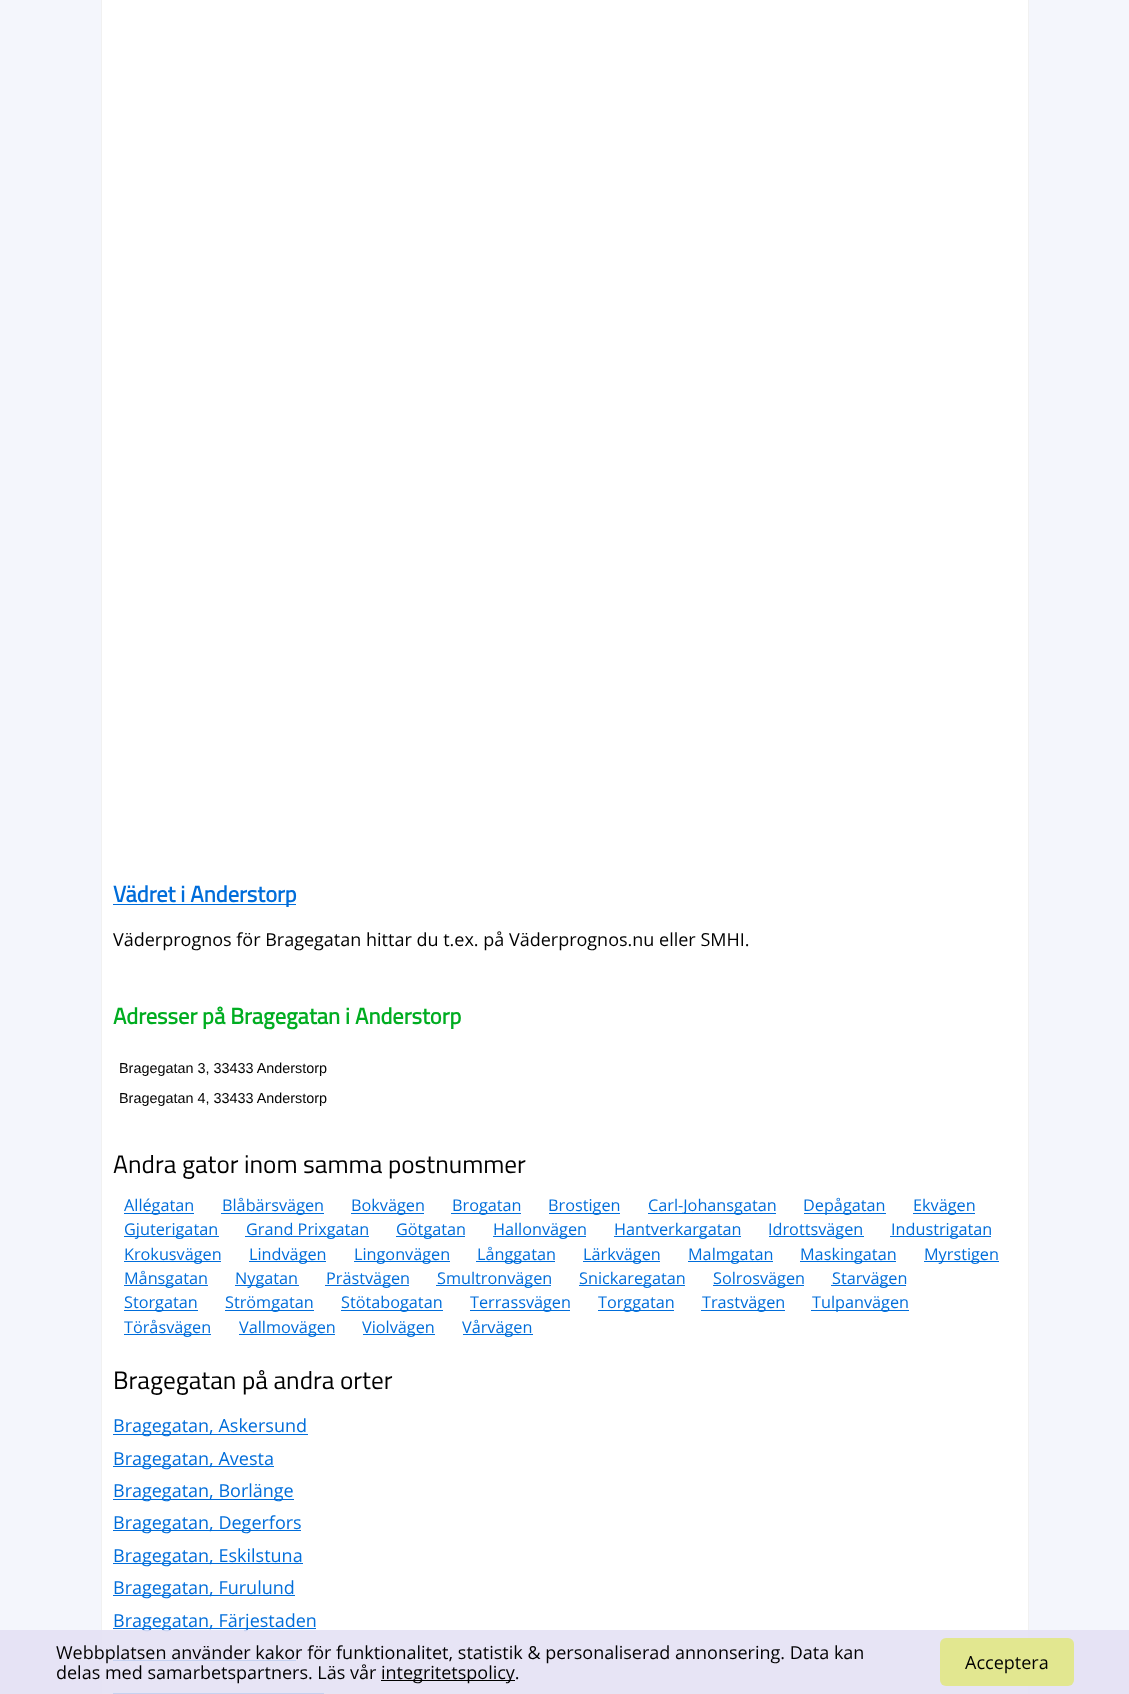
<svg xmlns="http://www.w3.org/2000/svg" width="1129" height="1694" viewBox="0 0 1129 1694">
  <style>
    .t1 { font: bold 22.5px Titillium Web; fill: #006dda; }
    .t2 { font: 18px Open Sans; fill: #000; }
    .t3 { font: bold 22.5px Titillium Web; fill: #00ad21; }
    .t4 { font: 14.4px Liberation Sans; fill: #000; }
    .t5 { font: 25.25px Titillium Web; fill: #000; }
    .t6 { font: 16.25px Open Sans; fill: #006dda; }
    .t7 { font: 18px Open Sans; fill: #006dda; }
  </style>
  <rect width="100%" height="100%" fill="#f4f6fc"/>
  <rect x="101.5" y="-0.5" width="927" height="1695" fill="#fff" stroke="#f1f1f1"/>
  <rect x="113" y="904" width="183" height="1" fill="#006dda"/>
  <text x="113" y="902" class="t1">Vädret i Anderstorp</text>
  <text x="113" y="946" class="t2">Väderprognos för Bragegatan hittar du t.ex. på Väderprognos.nu eller SMHI.</text>
  <text x="113" y="1024" class="t3">Adresser på Bragegatan i Anderstorp</text>
  <text x="119" y="1073" class="t4">Bragegatan 3, 33433 Anderstorp</text>
  <text x="119" y="1103" class="t4">Bragegatan 4, 33433 Anderstorp</text>
  <text x="113" y="1173" class="t5">Andra gator inom samma postnummer</text>
  <rect x="124" y="1213" width="70" height="1" fill="#006dda"/>
  <text x="124" y="1211" class="t6">Allégatan</text>
  <rect x="221" y="1213" width="103" height="1" fill="#006dda"/>
  <text x="222" y="1211" class="t6">Blåbärsvägen</text>
  <rect x="351" y="1213" width="73" height="1" fill="#006dda"/>
  <text x="351" y="1211" class="t6">Bokvägen</text>
  <rect x="451" y="1213" width="70" height="1" fill="#006dda"/>
  <text x="452" y="1211" class="t6">Brogatan</text>
  <rect x="549" y="1213" width="71" height="1" fill="#006dda"/>
  <text x="548" y="1211" class="t6">Brostigen</text>
  <rect x="648" y="1213" width="128" height="1" fill="#006dda"/>
  <text x="648" y="1211" class="t6">Carl-Johansgatan</text>
  <rect x="804" y="1213" width="82" height="1" fill="#006dda"/>
  <text x="803" y="1211" class="t6">Depågatan</text>
  <rect x="913" y="1213" width="62" height="1" fill="#006dda"/>
  <text x="913" y="1211" class="t6">Ekvägen</text>
  <rect x="124" y="1236" width="95" height="1" fill="#006dda"/>
  <text x="124" y="1235" class="t6">Gjuterigatan</text>
  <rect x="245" y="1236" width="124" height="1" fill="#006dda"/>
  <text x="246" y="1235" class="t6">Grand Prixgatan</text>
  <rect x="396" y="1236" width="69" height="1" fill="#006dda"/>
  <text x="396" y="1235" class="t6">Götgatan</text>
  <rect x="493" y="1236" width="93" height="1" fill="#006dda"/>
  <text x="493" y="1235" class="t6">Hallonvägen</text>
  <rect x="614" y="1236" width="127" height="1" fill="#006dda"/>
  <text x="614" y="1235" class="t6">Hantverkargatan</text>
  <rect x="769" y="1236" width="95" height="1" fill="#006dda"/>
  <text x="768" y="1235" class="t6">Idrottsvägen</text>
  <rect x="890" y="1236" width="101" height="1" fill="#006dda"/>
  <text x="891" y="1235" class="t6">Industrigatan</text>
  <rect x="124" y="1261" width="97" height="1" fill="#006dda"/>
  <text x="124" y="1260" class="t6">Krokusvägen</text>
  <rect x="249" y="1261" width="77" height="1" fill="#006dda"/>
  <text x="249" y="1260" class="t6">Lindvägen</text>
  <rect x="354" y="1261" width="96" height="1" fill="#006dda"/>
  <text x="354" y="1260" class="t6">Lingonvägen</text>
  <rect x="476" y="1261" width="79" height="1" fill="#006dda"/>
  <text x="477" y="1260" class="t6">Långgatan</text>
  <rect x="583" y="1261" width="77" height="1" fill="#006dda"/>
  <text x="583" y="1260" class="t6">Lärkvägen</text>
  <rect x="688" y="1261" width="85" height="1" fill="#006dda"/>
  <text x="688" y="1260" class="t6">Malmgatan</text>
  <rect x="800" y="1261" width="96" height="1" fill="#006dda"/>
  <text x="800" y="1260" class="t6">Maskingatan</text>
  <rect x="924" y="1261" width="75" height="1" fill="#006dda"/>
  <text x="924" y="1260" class="t6">Myrstigen</text>
  <rect x="124" y="1285" width="84" height="1" fill="#006dda"/>
  <text x="124" y="1284" class="t6">Månsgatan</text>
  <rect x="235" y="1285" width="64" height="1" fill="#006dda"/>
  <text x="235" y="1284" class="t6">Nygatan</text>
  <rect x="325" y="1285" width="84" height="1" fill="#006dda"/>
  <text x="326" y="1284" class="t6">Prästvägen</text>
  <rect x="436" y="1285" width="115" height="1" fill="#006dda"/>
  <text x="437" y="1284" class="t6">Smultronvägen</text>
  <rect x="579" y="1285" width="106" height="1" fill="#006dda"/>
  <text x="579" y="1284" class="t6">Snickaregatan</text>
  <rect x="713" y="1285" width="91" height="1" fill="#006dda"/>
  <text x="713" y="1284" class="t6">Solrosvägen</text>
  <rect x="831" y="1285" width="75" height="1" fill="#006dda"/>
  <text x="832" y="1284" class="t6">Starvägen</text>
  <rect x="124" y="1310" width="74" height="1" fill="#006dda"/>
  <text x="124" y="1308" class="t6">Storgatan</text>
  <rect x="225" y="1310" width="89" height="1" fill="#006dda"/>
  <text x="225" y="1308" class="t6">Strömgatan</text>
  <rect x="341" y="1310" width="102" height="1" fill="#006dda"/>
  <text x="341" y="1308" class="t6">Stötabogatan</text>
  <rect x="470" y="1310" width="100" height="1" fill="#006dda"/>
  <text x="470" y="1308" class="t6">Terrassvägen</text>
  <rect x="598" y="1310" width="76" height="1" fill="#006dda"/>
  <text x="598" y="1308" class="t6">Torggatan</text>
  <rect x="701" y="1310" width="84" height="1" fill="#006dda"/>
  <text x="702" y="1308" class="t6">Trastvägen</text>
  <rect x="811" y="1310" width="98" height="1" fill="#006dda"/>
  <text x="812" y="1308" class="t6">Tulpanvägen</text>
  <rect x="124" y="1334" width="87" height="1" fill="#006dda"/>
  <text x="124" y="1333" class="t6">Töråsvägen</text>
  <rect x="239" y="1334" width="96" height="1" fill="#006dda"/>
  <text x="239" y="1333" class="t6">Vallmovägen</text>
  <rect x="363" y="1334" width="72" height="1" fill="#006dda"/>
  <text x="362" y="1333" class="t6">Violvägen</text>
  <rect x="463" y="1334" width="70" height="1" fill="#006dda"/>
  <text x="462" y="1333" class="t6">Vårvägen</text>
  <text x="113" y="1389" class="t5">Bragegatan på andra orter</text>
  <rect x="113" y="1434" width="195" height="1" fill="#006dda"/>
  <text x="113" y="1432" class="t7">Bragegatan, Askersund</text>
  <rect x="113" y="1466" width="161" height="1" fill="#006dda"/>
  <text x="113" y="1465" class="t7">Bragegatan, Avesta</text>
  <rect x="113" y="1499" width="181" height="1" fill="#006dda"/>
  <text x="113" y="1497" class="t7">Bragegatan, Borlänge</text>
  <rect x="113" y="1530" width="188" height="1" fill="#006dda"/>
  <text x="113" y="1529" class="t7">Bragegatan, Degerfors</text>
  <rect x="113" y="1563" width="190" height="1" fill="#006dda"/>
  <text x="113" y="1562" class="t7">Bragegatan, Eskilstuna</text>
  <rect x="113" y="1595" width="182" height="1" fill="#006dda"/>
  <text x="113" y="1594" class="t7">Bragegatan, Furulund</text>
  <rect x="113" y="1628" width="203" height="1" fill="#006dda"/>
  <text x="113" y="1627" class="t7">Bragegatan, Färjestaden</text>
  <rect x="113" y="1660" width="183" height="1" fill="#006dda"/>
  <rect x="113" y="1693" width="211" height="1" fill="#006dda"/>
  <rect x="0" y="1630" width="1129" height="64" fill="#e4e0f4de"/>
  <text x="56" y="1659" class="t2">Webbplatsen använder kakor för funktionalitet, statistik &amp; personaliserad annonsering. Data kan</text>
  <text x="56" y="1679" class="t2">delas med samarbetspartners. Läs vår</text>
  <rect x="381" y="1680" width="134" height="1" fill="#000"/>
  <text x="381" y="1679" class="t2">integritetspolicy.</text>
  <rect x="940" y="1638" width="134" height="48" rx="6" fill="#e2e790"/>
  <text x="965" y="1669" class="t2">Acceptera</text>
</svg>
